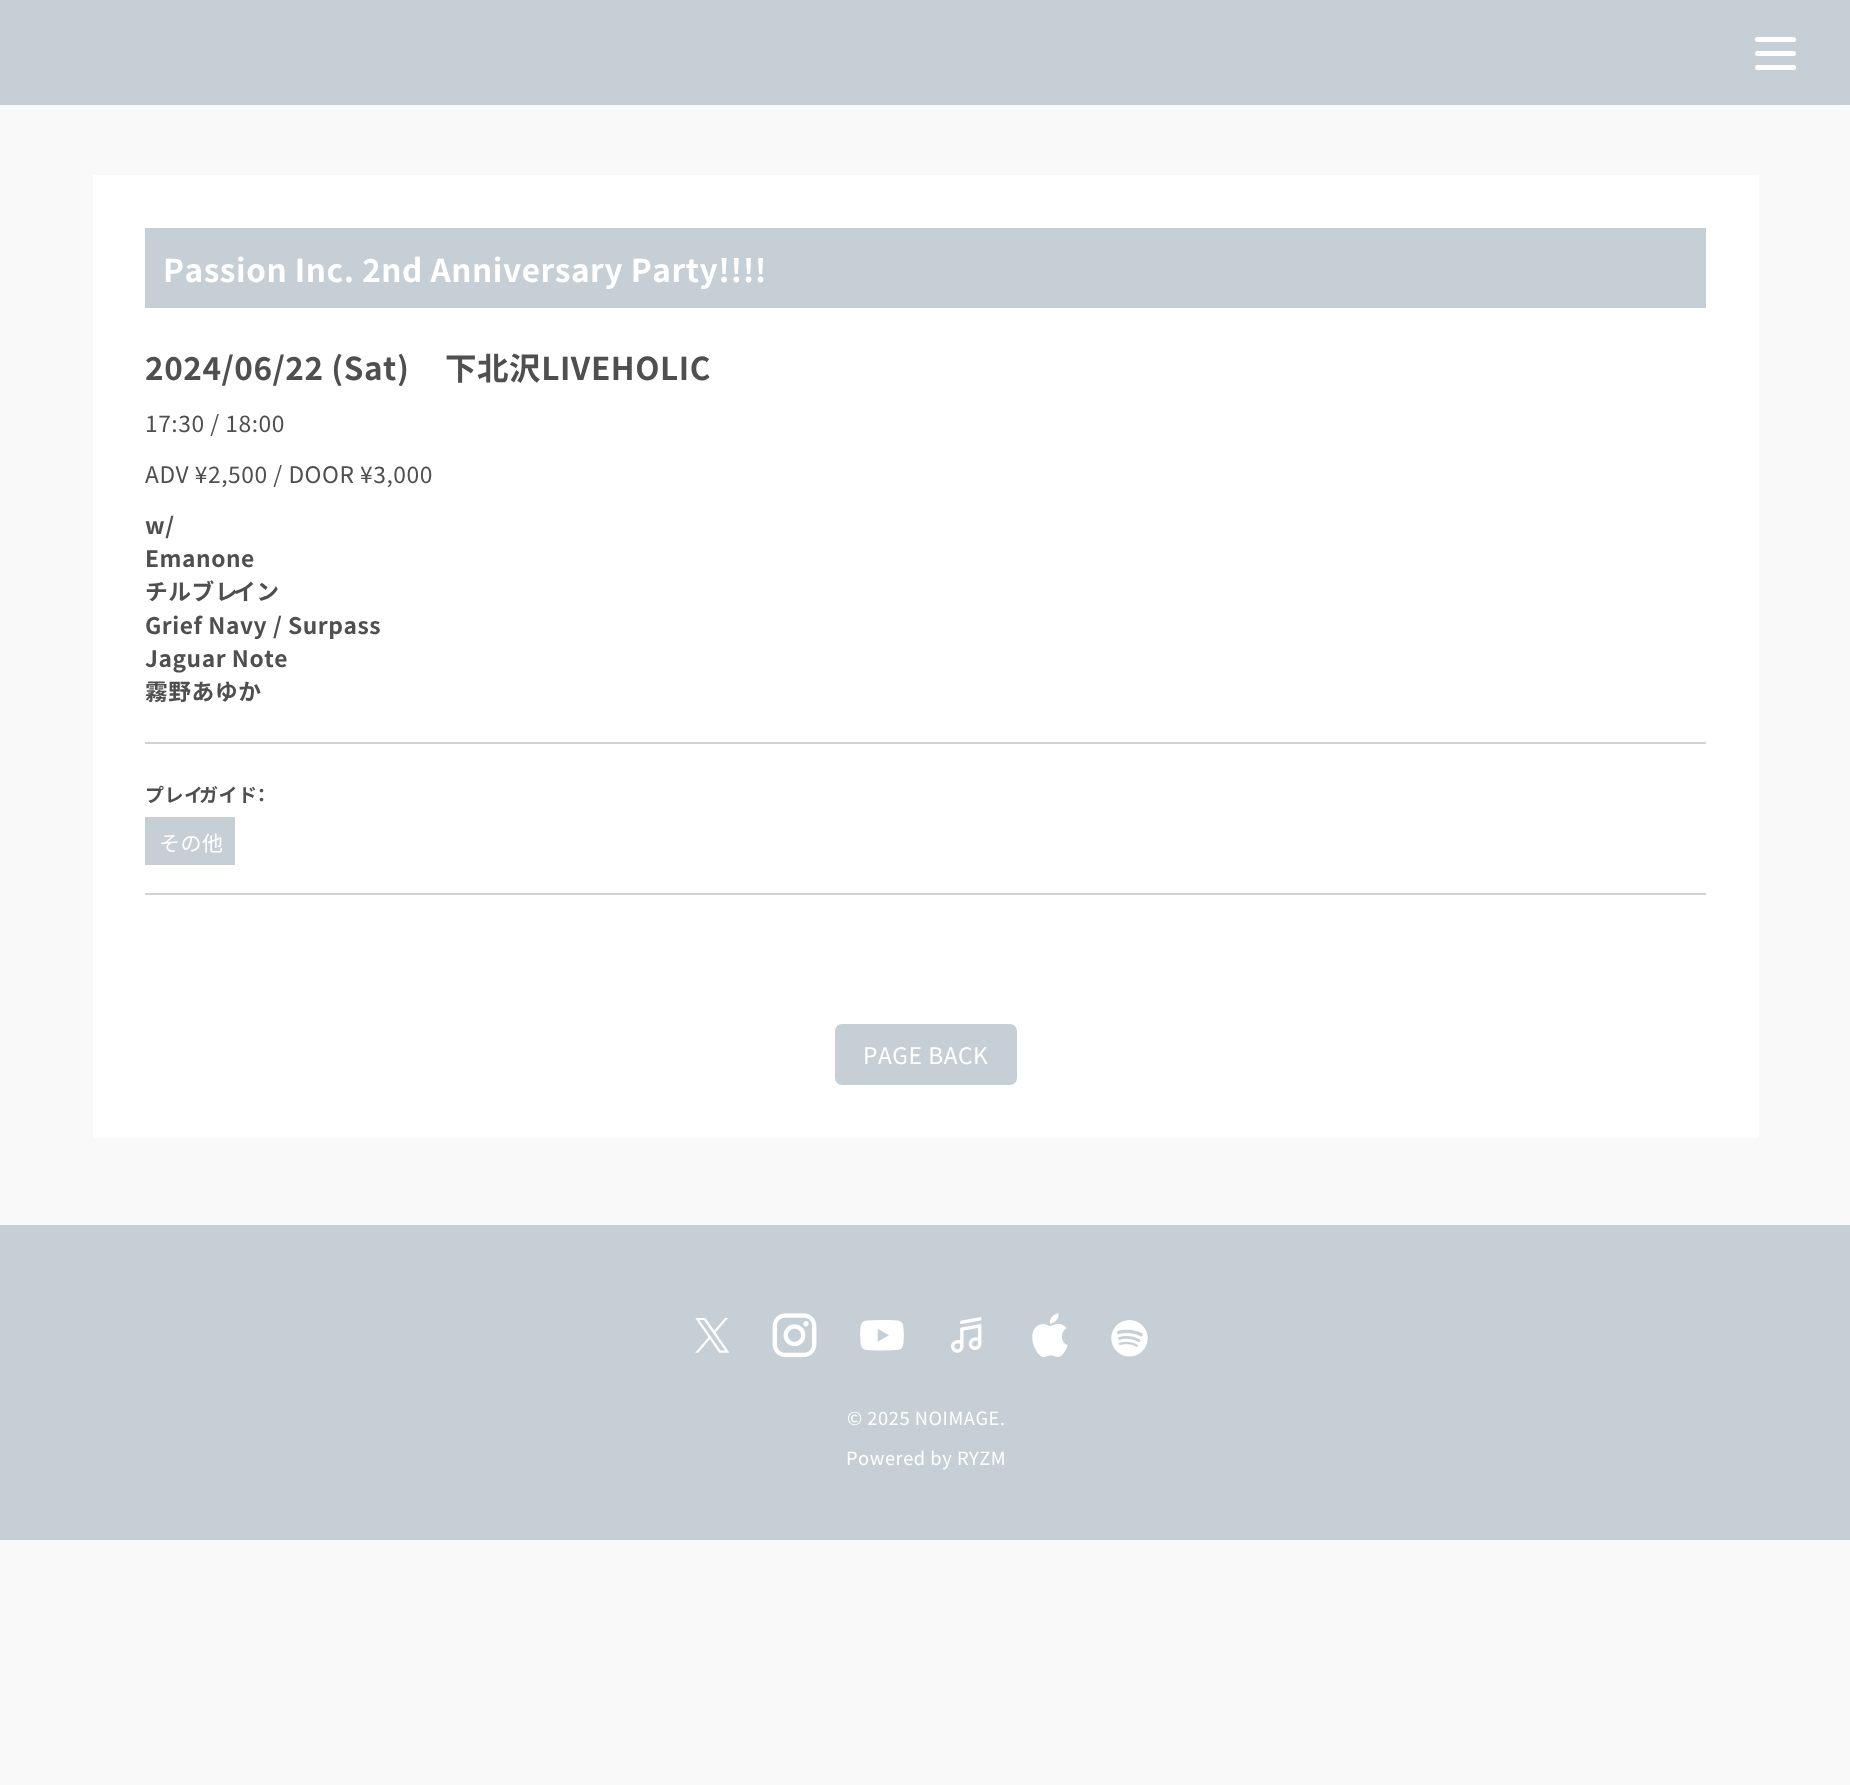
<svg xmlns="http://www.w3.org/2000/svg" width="1850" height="1785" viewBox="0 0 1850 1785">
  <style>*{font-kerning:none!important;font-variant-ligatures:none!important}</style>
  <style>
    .t1 { font: bold 31.5px Noto Sans JP; letter-spacing: 0.55px; fill: #fff; }
    .t2 { font: bold 31.5px Noto Sans JP; letter-spacing: 0.55px; fill: #4f4f4f; }
    .t3 { font: 22.75px Noto Sans JP; letter-spacing: 0.55px; fill: #4f4f4f; }
    .t4 { font: bold 22.75px Noto Sans JP; letter-spacing: 0.55px; fill: #4f4f4f; }
    .t5 { font: bold 19px Noto Sans JP; letter-spacing: 0.55px; fill: #4f4f4f; }
    .t6 { font: 21px Noto Sans JP; letter-spacing: 0.55px; fill: #fff; }
    .t7 { font: 22.75px Noto Sans JP; letter-spacing: 0.55px; fill: #fff; }
    .t8 { font: 18.25px Noto Sans JP; letter-spacing: 0.55px; fill: #fff; }
  </style>
  <rect width="100%" height="100%" fill="#f9f9f9"/>
  <rect x="0" y="0" width="1850" height="105" fill="#c6cfd5"/>
  <rect x="1755" y="37" width="41" height="5" rx="2.5" fill="#fff"/>
  <rect x="1755" y="51" width="41" height="5" rx="2.5" fill="#fff"/>
  <rect x="1755" y="65" width="41" height="5" rx="2.5" fill="#fff"/>
  <rect x="93" y="175" width="1666" height="963" fill="#fff"/>
  <rect x="145" y="228" width="1561" height="80" fill="#c6cfd5"/>
  <text x="163" y="282" class="t1">Passion Inc. 2nd Anniversary Party!!!!</text>
  <text x="145" y="380" class="t2">2024/06/22 (Sat)</text>
  <text x="445" y="380" class="t2">下北沢LIVEHOLIC</text>
  <text x="145" y="432" class="t3">17:30 / 18:00</text>
  <text x="145" y="483" class="t3">ADV ¥2,500 / DOOR ¥3,000</text>
  <rect x="145" y="742" width="1561" height="2" fill="#d2d2d2"/>
  <text x="145" y="534" class="t4">w/</text>
  <text x="145" y="567" class="t4">Emanone</text>
  <text x="145" y="600" class="t4">チルブレ</text>
  <text x="233" y="600" class="t4">イン</text>
  <text x="145" y="634" class="t4">Grief Navy / Surpass</text>
  <text x="145" y="667" class="t4">Jaguar Note</text>
  <text x="145" y="700" class="t4">霧野あゆか</text>
  <rect x="145" y="893" width="1561" height="2" fill="#d2d2d2"/>
  <text x="145" y="802" class="t5">プレイ</text>
  <text x="199" y="802" class="t5">ガイド</text>
  <text x="252" y="802" class="t5">：</text>
  <rect x="145" y="817" width="90" height="48" fill="#c6cfd5"/>
  <text x="159" y="851" class="t6">その他</text>
  <rect x="835" y="1024" width="182" height="61" rx="7" fill="#c6cfd5"/>
  <text x="863" y="1064" class="t7">PAGE BACK</text>
  <rect x="0" y="1225" width="1850" height="315" fill="#c6cfd5"/>
  <image x="695" y="1318" width="35" height="35" href="images/1.png"/>
  <image x="772" y="1313" width="45" height="45" href="images/2.png"/>
  <image x="860" y="1320" width="44" height="31" href="images/3.png"/>
  <image x="951" y="1317" width="31" height="36" href="images/4.png"/>
  <image x="1032" y="1313" width="36" height="45" href="images/5.png"/>
  <image x="1111" y="1320" width="37" height="37" href="images/6.png"/>
  <text x="847" y="1425" class="t8">© 2025 NOIMAGE.</text>
  <text x="846" y="1465" class="t8">Powered by RYZM</text>
</svg>
